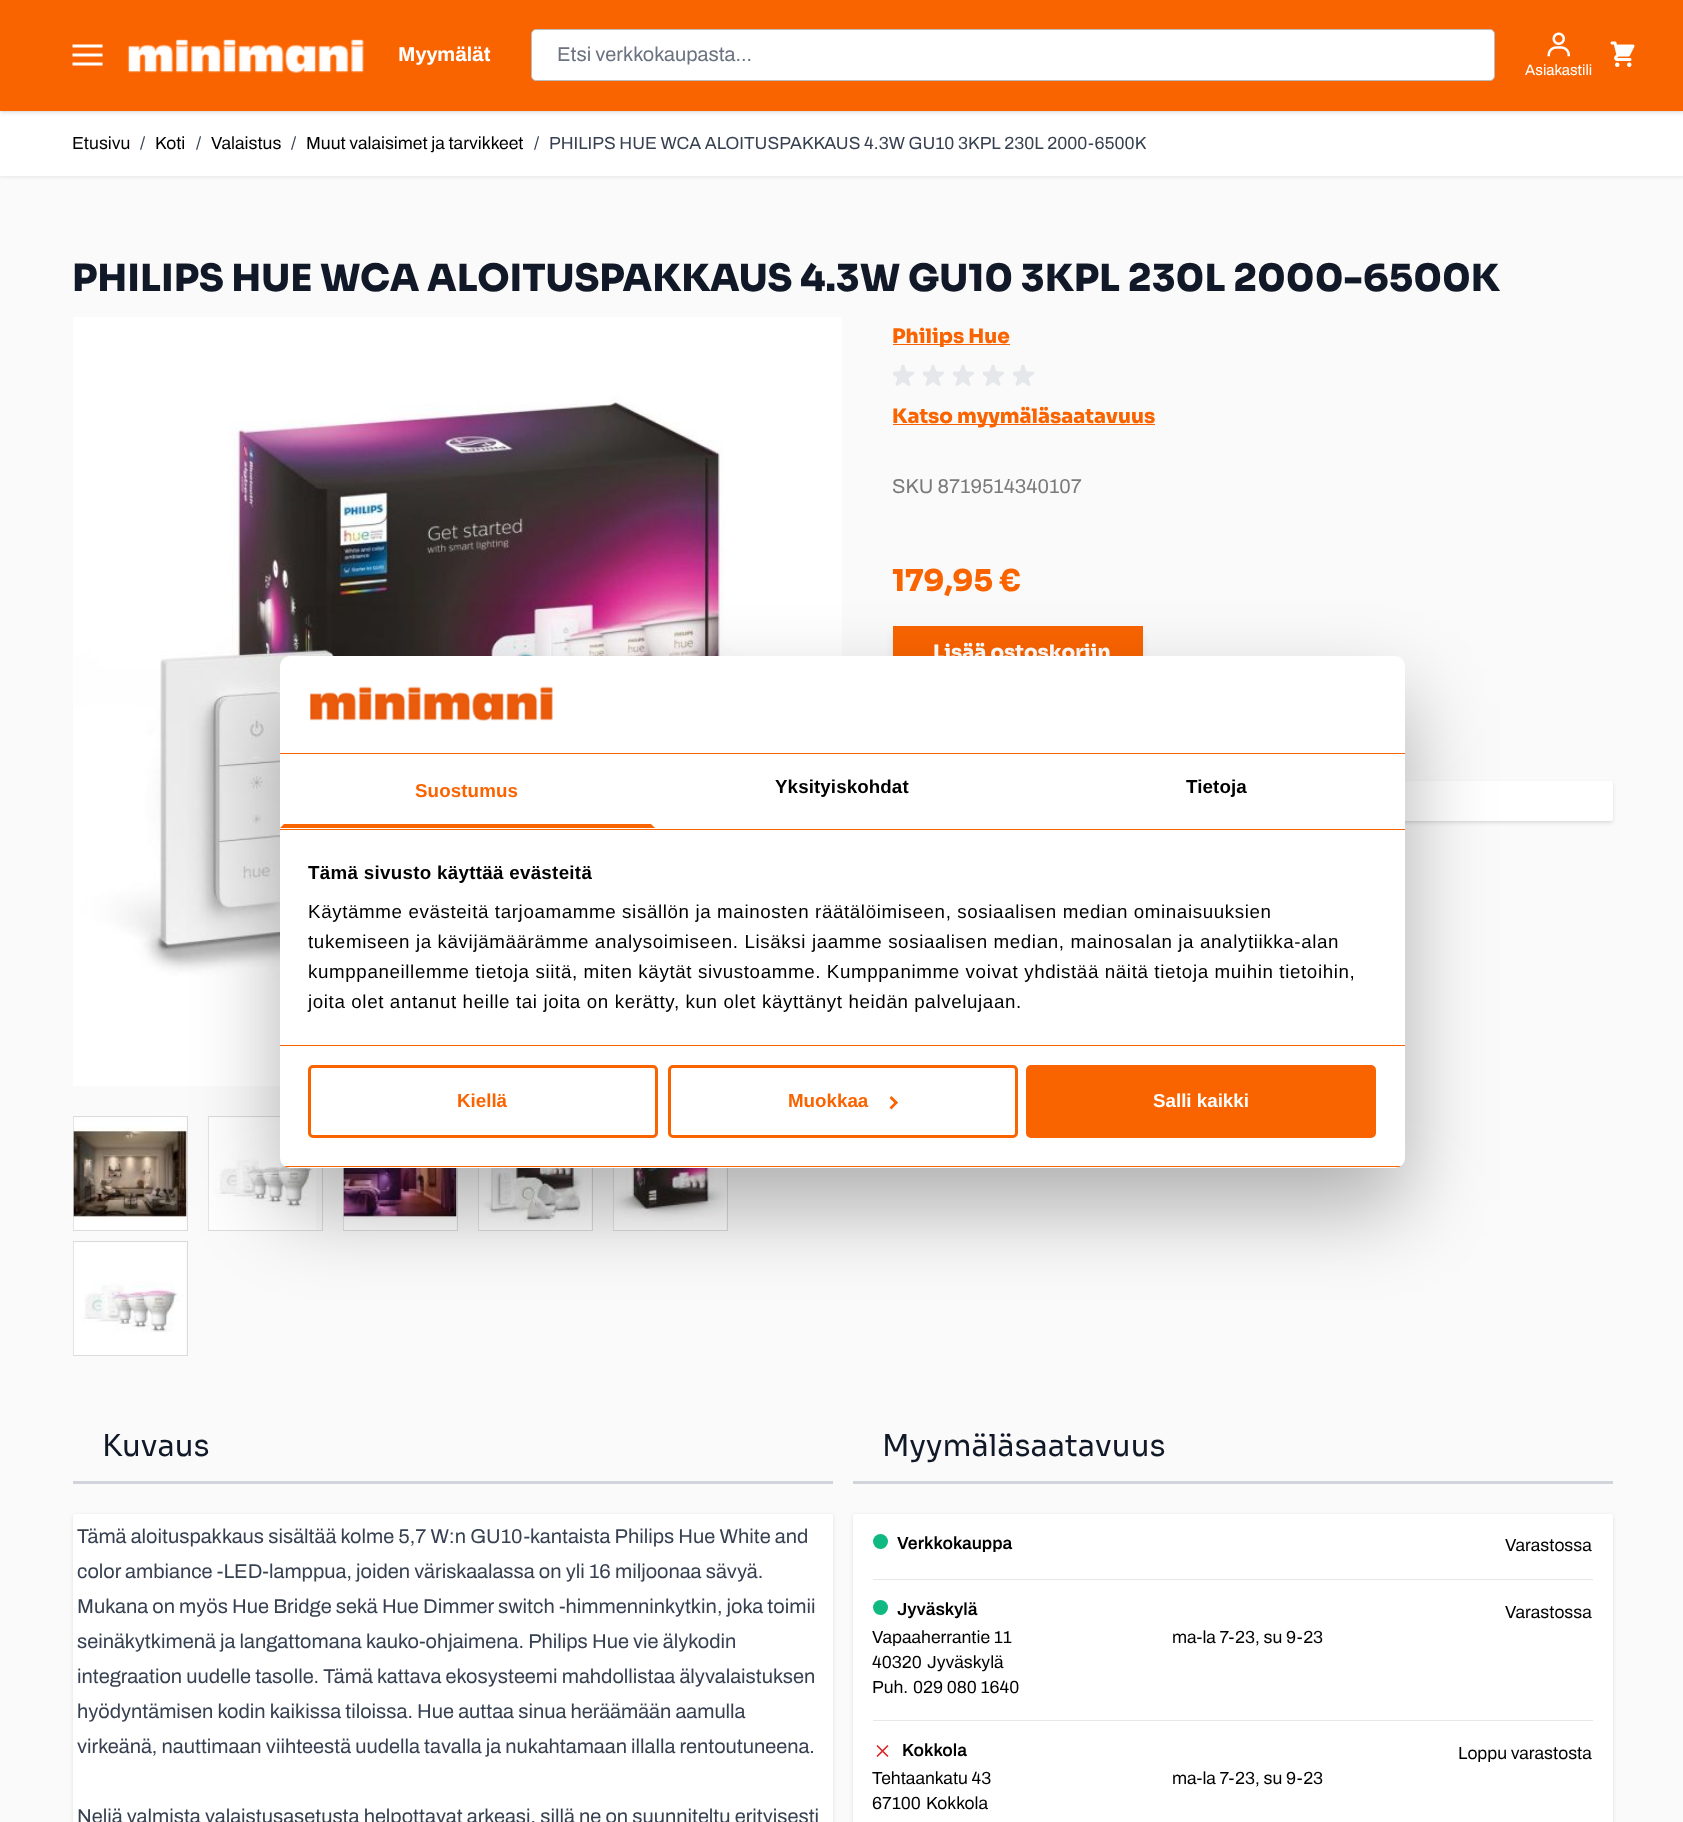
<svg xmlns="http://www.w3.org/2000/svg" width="1683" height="1822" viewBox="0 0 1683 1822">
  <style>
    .t1 { font: bold 20px Archivo; fill: #fff; }
    .t2 { font: 20px Archivo; fill: #6b7280; }
    .t3 { font: 15px Archivo; fill: #fff; }
    .t4 { font: 17.5px Archivo; fill: #000; }
    .t5 { font: 17.5px Archivo; fill: #374151; }
    .t6 { font: 800 37.5px Sora; fill: #111827; }
    .t7 { font: 800 20px Sora; fill: #fa6400; }
    .t8 { font: 20px Archivo; fill: #7a7a7a; }
    .t9 { font: 800 30px Sora; fill: #fa6400; }
    .t10 { font: 800 20px Sora; fill: #fff; }
    .t11 { font: 30px Sora; fill: #111827; }
    .t12 { font: 20px Archivo; fill: #374151; }
    .t13 { font: 600 17.5px Archivo; fill: #000; }
    .t14 { font: bold 18.75px Liberation Sans; letter-spacing: 0.1px; fill: #fa6400; }
    .t15 { font: bold 18.75px Liberation Sans; letter-spacing: 0.1px; fill: #000; }
    .t16 { font: bold 18.75px Liberation Sans; letter-spacing: 0.3px; fill: #000; }
    .t17 { font: 18.75px Liberation Sans; letter-spacing: 0.62px; fill: #000; }
    .t18 { font: bold 18.75px Liberation Sans; fill: #fa6400; }
    .t19 { font: bold 18.75px Liberation Sans; fill: #fff; }
  </style>
  <defs>
    <clipPath id="clip1"><rect x="280" y="656" width="1125" height="512" rx="10"/></clipPath>
  </defs>
  <rect width="100%" height="100%" fill="#fafafa"/>
  <rect x="0" y="113" width="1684" height="65" fill="#0000000d" filter="blur(1px)"/>
  <rect x="0" y="111" width="1683" height="65" fill="#fff"/>
  <rect x="1" y="3" width="1682" height="108" fill="#0000001a" filter="blur(1px)"/>
  <rect x="0" y="1" width="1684" height="112" fill="#0000001a" filter="blur(2px)"/>
  <rect x="0" y="0" width="1683" height="111" fill="#fa6400"/>
  <image x="72" y="44" width="31" height="22" href="images/1.png"/>
  <image x="127" y="39" width="237" height="34" href="images/2.png"/>
  <text x="398" y="61" class="t1">Myymälät</text>
  <rect x="531.5" y="29.5" width="963" height="51" rx="4.5" fill="#fff" stroke="#bbbcbc"/>
  <text x="557" y="61" class="t2">Etsi verkkokaupasta...</text>
  <image x="1610" y="41" width="25" height="26" href="images/3.png"/>
  <image x="1547" y="32" width="23" height="25" href="images/4.png"/>
  <text x="1525" y="75" class="t3">Asiakastili</text>
  <text x="72" y="149" class="t4">Etusivu</text>
  <text x="140" y="149" class="t5">/</text>
  <text x="155" y="149" class="t4">Koti</text>
  <text x="196" y="149" class="t5">/</text>
  <text x="211" y="149" class="t4">Valaistus</text>
  <text x="291" y="149" class="t5">/</text>
  <text x="306" y="149" class="t4">Muut valaisimet ja tarvikkeet</text>
  <text x="534" y="149" class="t5">/</text>
  <text x="549" y="149" class="t5">PHILIPS HUE WCA ALOITUSPAKKAUS 4.3W GU10 3KPL 230L 2000-6500K</text>
  <text x="72" y="291" class="t6">PHILIPS HUE WCA ALOITUSPAKKAUS 4.3W GU10 3KPL 230L 2000-6500K</text>
  <image x="73" y="317" width="769" height="769" href="images/5.png"/>
  <rect x="73.5" y="1116.5" width="114" height="114" fill="none" stroke="#dbdbdb"/>
  <image x="73" y="1117" width="114" height="113" href="images/6.png"/>
  <rect x="208.5" y="1116.5" width="114" height="114" fill="none" stroke="#dbdbdb"/>
  <image x="208" y="1117" width="108" height="113" href="images/7.png"/>
  <rect x="343.5" y="1116.5" width="114" height="114" fill="none" stroke="#dbdbdb"/>
  <image x="343" y="1168" width="114" height="62" href="images/8.png"/>
  <rect x="478.5" y="1116.5" width="114" height="114" fill="none" stroke="#dbdbdb"/>
  <image x="478" y="1168" width="113" height="62" href="images/9.png"/>
  <rect x="613.5" y="1116.5" width="114" height="114" fill="none" stroke="#dbdbdb"/>
  <image x="613" y="1168" width="113" height="62" href="images/10.png"/>
  <rect x="73.5" y="1241.5" width="114" height="114" fill="none" stroke="#dbdbdb"/>
  <image x="73" y="1242" width="113" height="113" href="images/11.png"/>
  <rect x="893" y="344" width="117" height="1" fill="#fa6400"/>
  <text x="892" y="343" class="t7">Philips Hue</text>
  <image x="893" y="364" width="21" height="22" href="images/12.png"/>
  <image x="923" y="364" width="21" height="22" href="images/12.png"/>
  <image x="953" y="364" width="21" height="22" href="images/12.png"/>
  <image x="983" y="364" width="21" height="22" href="images/12.png"/>
  <image x="1013" y="364" width="21" height="22" href="images/12.png"/>
  <rect x="893" y="424" width="262" height="1" fill="#fa6400"/>
  <text x="892" y="423" class="t7">Katso myymäläsaatavuus</text>
  <text x="892" y="493" class="t8">SKU 8719514340107</text>
  <text x="892" y="591" class="t9">179,95 €</text>
  <rect x="894" y="633" width="247" height="50" fill="#0000001a" filter="blur(4px)"/>
  <rect x="893" y="626" width="250" height="30" fill="#fa6400"/>
  <text x="933" y="659" class="t10">Lisää ostoskoriin</text>
  <rect x="894" y="784" width="717" height="37" rx="1" fill="#0000001a" filter="blur(1px)"/>
  <rect x="893" y="783" width="720" height="40" rx="2.5" fill="#0000001a" filter="blur(2px)"/>
  <rect x="893" y="781" width="720" height="40" rx="2.5" fill="#fff"/>
  <rect x="73" y="1481" width="760" height="3" fill="#d1d5db"/>
  <text x="102" y="1456" class="t11">Kuvaus</text>
  <rect x="73" y="1515" width="760" height="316" rx="2.5" fill="#0000001a" filter="blur(2px)"/>
  <rect x="73" y="1514" width="760" height="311" rx="2.5" fill="#fff"/>
  <text x="77" y="1543" class="t12">Tämä aloituspakkaus sisältää kolme 5,7 W:n GU10-kantaista Philips Hue White and</text>
  <text x="77" y="1578" class="t12">color ambiance -LED-lamppua, joiden väriskaalassa on yli 16 miljoonaa sävyä.</text>
  <text x="77" y="1613" class="t12">Mukana on myös Hue Bridge sekä Hue Dimmer switch -himmenninkytkin, joka toimii</text>
  <text x="77" y="1648" class="t12">seinäkytkimenä ja langattomana kauko-ohjaimena. Philips Hue vie älykodin</text>
  <text x="77" y="1683" class="t12">integraation uudelle tasolle. Tämä kattava ekosysteemi mahdollistaa älyvalaistuksen</text>
  <text x="77" y="1718" class="t12">hyödyntämisen kodin kaikissa tiloissa. Hue auttaa sinua heräämään aamulla</text>
  <text x="77" y="1753" class="t12">virkeänä, nauttimaan viihteestä uudella tavalla ja nukahtamaan illalla rentoutuneena.</text>
  <text x="77" y="1823" class="t12">Neljä valmista valaistusasetusta helpottavat arkeasi, sillä ne on suunniteltu erityisesti</text>
  <rect x="853" y="1481" width="760" height="3" fill="#d1d5db"/>
  <text x="882" y="1456" class="t11">Myymäläsaatavuus</text>
  <rect x="853" y="1515" width="760" height="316" rx="2.5" fill="#0000001a" filter="blur(2px)"/>
  <rect x="853" y="1514" width="760" height="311" rx="2.5" fill="#fff"/>
  <rect x="873" y="1579" width="720" height="1" fill="#e5e7eb"/>
  <circle cx="880.5" cy="1541.5" r="7.5" fill="#10b981"/>
  <text x="897" y="1549" class="t13">Verkkokauppa</text>
  <text x="1505" y="1551" class="t4">Varastossa</text>
  <rect x="873" y="1720" width="720" height="1" fill="#e5e7eb"/>
  <circle cx="880.5" cy="1607.5" r="7.5" fill="#10b981"/>
  <text x="897" y="1615" class="t13">Jyväskylä</text>
  <text x="1505" y="1618" class="t4">Varastossa</text>
  <text x="872" y="1643" class="t4">Vapaaherrantie 11</text>
  <text x="1172" y="1643" class="t4">ma-la 7-23, su 9-23</text>
  <text x="872" y="1668" class="t4">40320</text>
  <text x="927" y="1668" class="t4">Jyväskylä</text>
  <text x="872" y="1693" class="t4">Puh.</text>
  <text x="913" y="1693" class="t4">029 080 1640</text>
  <path d="M877.5 1756L887.5 1746M877.5 1746L887.5 1756" fill="none" stroke="#dc2626" stroke-width="1.7" stroke-linecap="round" stroke-linejoin="round"/>
  <text x="902" y="1756" class="t13">Kokkola</text>
  <text x="1458" y="1759" class="t4">Loppu varastosta</text>
  <text x="872" y="1784" class="t4">Tehtaankatu 43</text>
  <text x="1172" y="1784" class="t4">ma-la 7-23, su 9-23</text>
  <text x="872" y="1809" class="t4">67100</text>
  <text x="926" y="1809" class="t4">Kokkola</text>
  <rect x="280" y="696" width="1125" height="512" rx="10" fill="#0000004d" filter="blur(42.5px)"/>
  <rect x="280" y="656" width="1125" height="512" rx="10" fill="#fff"/>
  <rect x="280" y="753" width="1125" height="1" fill="#fa6400"/>
  <image x="310" y="686" width="245" height="35" href="images/13.png"/>
  <rect x="280" y="829" width="1125" height="1" fill="#fa6400"/>
  <path d="M655 828H280L284 824H651Z" fill="#fa6400"/>
  <text x="415" y="797" class="t14">Suostumus</text>
  <text x="775" y="793" class="t15">Yksityiskohdat</text>
  <text x="1186" y="793" class="t15">Tietoja</text>
  <rect x="280" y="1045" width="1125" height="1" fill="#fa6400"/>
  <text x="308" y="879" class="t16">Tämä sivusto käyttää evästeitä</text>
  <text x="308" y="918" class="t17">Käytämme evästeitä tarjoamamme sisällön ja mainosten räätälöimiseen, sosiaalisen median ominaisuuksien</text>
  <text x="308" y="948" class="t17">tukemiseen ja kävijämäärämme analysoimiseen. Lisäksi jaamme sosiaalisen median, mainosalan ja analytiikka-alan</text>
  <text x="308" y="978" class="t17">kumppaneillemme tietoja siitä, miten käytät sivustoamme. Kumppanimme voivat yhdistää näitä tietoja muihin tietoihin,</text>
  <text x="308" y="1008" class="t17">joita olet antanut heille tai joita on kerätty, kun olet käyttänyt heidän palvelujaan.</text>
  <g clip-path="url(#clip1)">
    <rect x="280" y="1166" width="1125" height="1" fill="#fa6400"/>
  </g>
  <rect x="309.5" y="1066.5" width="347" height="70" rx="3.5" fill="none" stroke="#fa6400" stroke-width="3"/>
  <text x="457" y="1107" class="t18">Kiellä</text>
  <rect x="669.5" y="1066.5" width="347" height="70" rx="3.5" fill="none" stroke="#fa6400" stroke-width="3"/>
  <text x="788" y="1107" class="t18">Muokkaa</text>
  <path d="M891.5 1096L898 1102.5L896 1104.5L889.5 1098Z" fill="#fa6400"/>
  <path d="M896 1101L898 1102.5L891.5 1109.5L889.5 1107.5Z" fill="#fa6400"/>
  <rect x="1027.5" y="1066.5" width="347" height="70" rx="3.5" fill="#fa6400" stroke="#fa6400" stroke-width="3"/>
  <text x="1153" y="1107" class="t19">Salli kaikki</text>
</svg>
